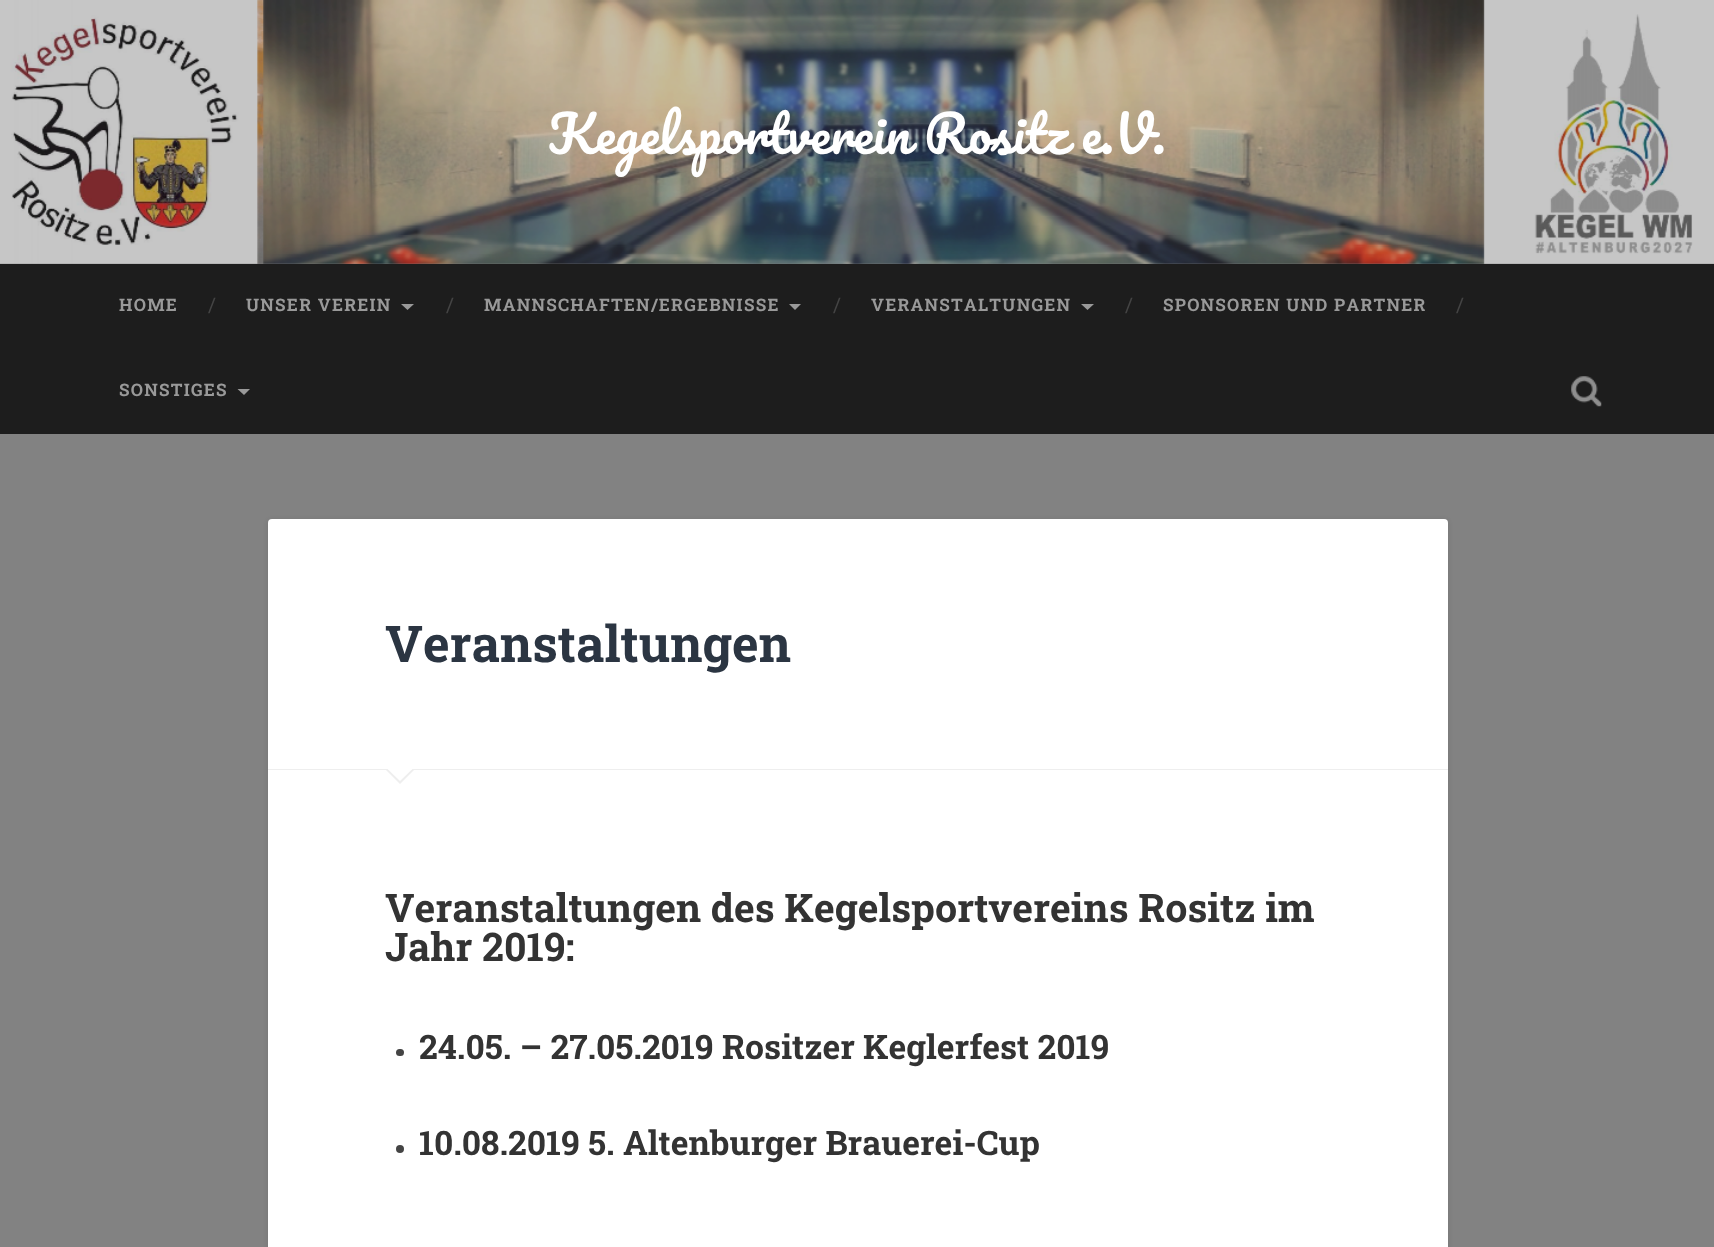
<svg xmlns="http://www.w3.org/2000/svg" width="1714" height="1247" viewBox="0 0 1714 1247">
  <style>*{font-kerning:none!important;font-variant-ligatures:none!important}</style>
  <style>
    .t1 { font: 50.6px Pacifico; fill: #fff; }
    .t2 { font: bold 17.25px Roboto Slab; letter-spacing: 1.25px; fill: #999; }
    .t3 { font: 20px Roboto Slab; fill: #444; }
    .t4 { font: bold 50.6px Roboto Slab; fill: #2b3542; }
    .t5 { font: bold 39.4px Roboto Slab; fill: #333; }
    .t6 { font: bold 33.75px Roboto Slab; fill: #333; }
  </style>
  <rect width="100%" height="100%" fill="#828282"/>
  <image x="0" y="0" width="1714" height="264" href="images/1.png"/>
  <text x="548" y="154" class="t1">Kegelsportverein Rositz e.V.</text>
  <rect x="0" y="264" width="1714" height="170" fill="#1d1d1d"/>
  <text x="119" y="311" class="t2">HOME</text>
  <text x="208" y="312" class="t3">/</text>
  <text x="246" y="311" class="t2">UNSER VEREIN</text>
  <path d="M401 304H414L407.5 310Z" fill="#999"/>
  <text x="446" y="312" class="t3">/</text>
  <text x="484" y="311" class="t2">MANNSCHAFTEN/ERGEBNISSE</text>
  <path d="M789 304H801L795 310Z" fill="#999"/>
  <text x="833" y="312" class="t3">/</text>
  <text x="871" y="311" class="t2">VERANSTALTUNGEN</text>
  <path d="M1081 304H1094L1087.5 310Z" fill="#999"/>
  <text x="1125" y="312" class="t3">/</text>
  <text x="1163" y="311" class="t2">SPONSOREN UND PARTNER</text>
  <text x="1456" y="312" class="t3">/</text>
  <text x="119" y="396" class="t2">SONSTIGES</text>
  <path d="M237.5 389H250L244 395Z" fill="#999"/>
  <image x="1571" y="376" width="31" height="31" href="images/2.png"/>
  <rect x="268" y="520" width="1180" height="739" rx="4" fill="#0000001a" filter="blur(2.5px)"/>
  <rect x="268" y="519" width="1180" height="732" rx="4" fill="#fff"/>
  <rect x="268" y="769" width="1180" height="1" fill="#eee"/>
  <text x="385" y="662" class="t4">Veranstaltungen</text>
  <path d="M385 769H415L400 784Z" fill="#eee"/>
  <path d="M386 767.5H414L400 781Z" fill="#fff"/>
  <text x="385" y="922" class="t5">Veranstaltungen des Kegelsportvereins Rositz im</text>
  <text x="385" y="961" class="t5">Jahr 2019:</text>
  <rect x="396" y="1049" width="8" height="7" rx="3.5" fill="#444"/>
  <text x="419" y="1059" class="t6">24.05. – 27.05.2019 Rositzer Keglerfest 2019</text>
  <circle cx="400" cy="1149" r="4" fill="#444"/>
  <text x="419" y="1155" class="t6">10.08.2019 5. Altenburger Brauerei-Cup</text>
</svg>
